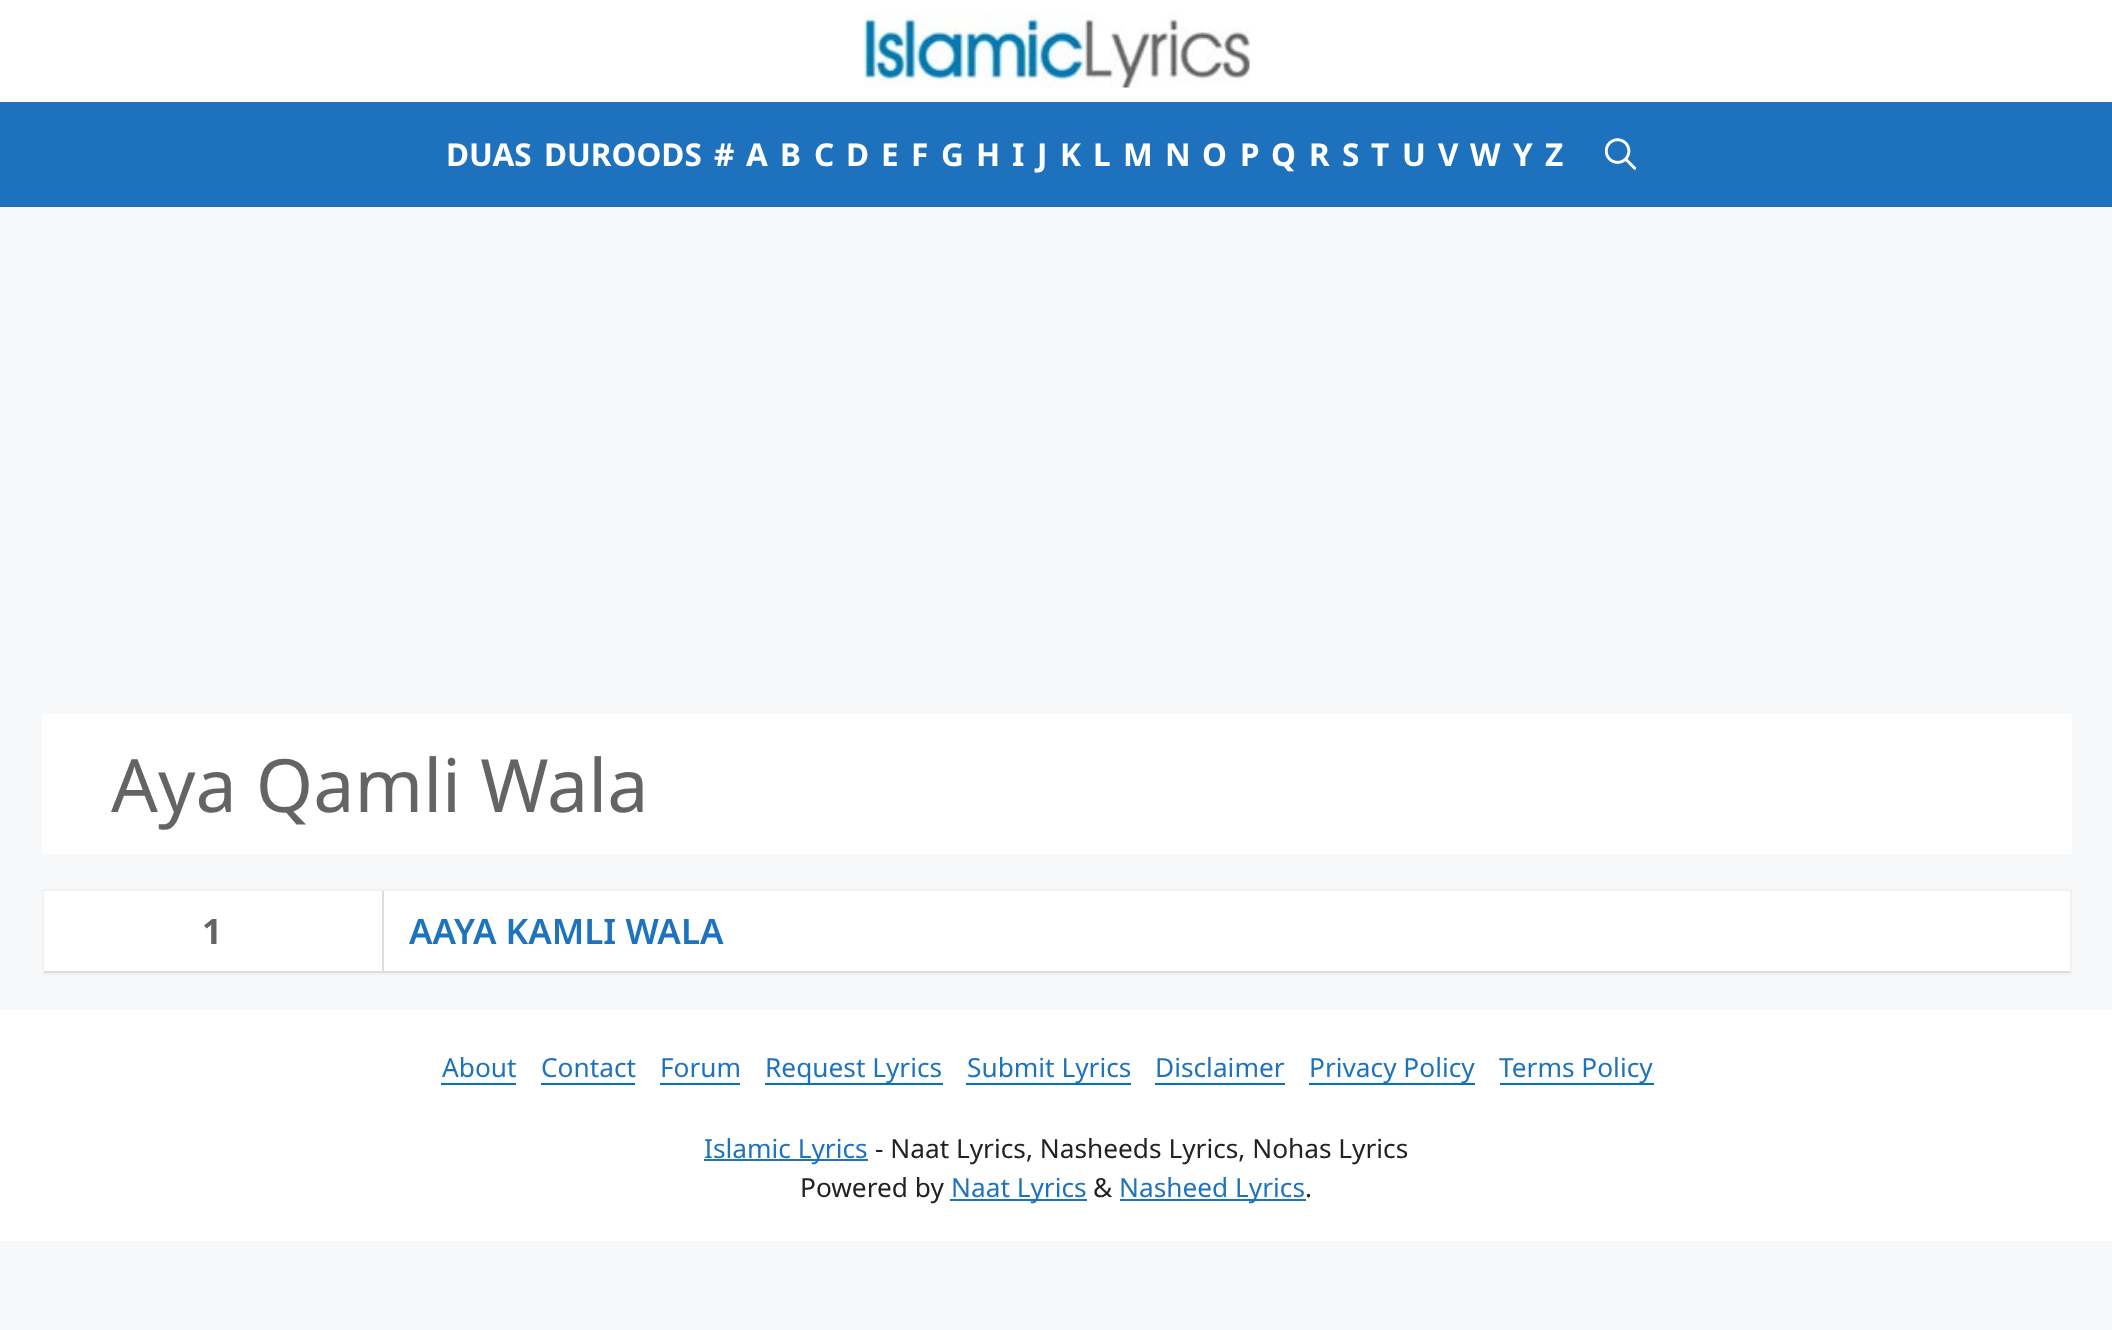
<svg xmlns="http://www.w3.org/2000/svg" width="2112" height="1330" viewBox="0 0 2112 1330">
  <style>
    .t1 { font: bold 31.5px Noto Sans; fill: #fff; }
    .t2 { font: 73.5px Noto Sans; fill: #646464; }
    .t3 { font: bold 35px Noto Sans; fill: #646464; }
    .t4 { font: 600 35px Noto Sans; fill: #1e73be; }
    .t5 { font: 26.25px Noto Sans; fill: #1e73be; }
    .t6 { font: 26.25px Noto Sans; fill: #222; }
  </style>
  <rect width="100%" height="100%" fill="#f7f8f9"/>
  <rect x="0" y="0" width="2112" height="102" fill="#fff"/>
  <image x="864" y="14" width="386" height="74" href="images/1.png"/>
  <rect x="0" y="102" width="2112" height="105" fill="#1e72bd"/>
  <text x="446" y="166" class="t1">DUAS</text>
  <text x="544" y="166" class="t1">DUROODS</text>
  <text x="714" y="166" class="t1">#</text>
  <text x="746" y="166" class="t1">A</text>
  <text x="780" y="166" class="t1">B</text>
  <text x="814" y="166" class="t1">C</text>
  <text x="846" y="166" class="t1">D</text>
  <text x="881" y="166" class="t1">E</text>
  <text x="911" y="166" class="t1">F</text>
  <text x="941" y="166" class="t1">G</text>
  <text x="976" y="166" class="t1">H</text>
  <text x="1012" y="166" class="t1">I</text>
  <text x="1037" y="166" class="t1">J</text>
  <text x="1060" y="166" class="t1">K</text>
  <text x="1093" y="166" class="t1">L</text>
  <text x="1123" y="166" class="t1">M</text>
  <text x="1165" y="166" class="t1">N</text>
  <text x="1202" y="166" class="t1">O</text>
  <text x="1240" y="166" class="t1">P</text>
  <text x="1271" y="166" class="t1">Q</text>
  <text x="1309" y="166" class="t1">R</text>
  <text x="1342" y="166" class="t1">S</text>
  <text x="1371" y="166" class="t1">T</text>
  <text x="1402" y="166" class="t1">U</text>
  <text x="1438" y="166" class="t1">V</text>
  <text x="1470" y="166" class="t1">W</text>
  <text x="1513" y="166" class="t1">Y</text>
  <text x="1545" y="166" class="t1">Z</text>
  <image x="1605" y="138" width="31" height="32" href="images/2.png"/>
  <rect x="42" y="714" width="2030" height="140" fill="#fff"/>
  <text x="111" y="812" class="t2">Aya Qamli Wala</text>
  <rect x="44" y="891" width="2026" height="80" fill="#fff"/>
  <rect x="43" y="890" width="2028" height="84" fill="none" stroke="#f2f2f2" stroke-width="2"/>
  <rect x="44" y="971" width="2026" height="2" fill="#ddd"/>
  <text x="202" y="944" class="t3">1</text>
  <rect x="382" y="891" width="2" height="80" fill="#ddd"/>
  <text x="409" y="944" class="t4">AAYA KAMLI WALA</text>
  <rect x="0" y="1010" width="2112" height="231" fill="#fff"/>
  <text x="442" y="1077" class="t5">About</text>
  <rect x="441" y="1083" width="75" height="2" fill="#0274be"/>
  <text x="541" y="1077" class="t5">Contact</text>
  <rect x="541" y="1083" width="94" height="2" fill="#0274be"/>
  <text x="660" y="1077" class="t5">Forum</text>
  <rect x="660" y="1083" width="80" height="2" fill="#0274be"/>
  <rect x="765" y="1083" width="178" height="2" fill="#0274be"/>
  <text x="765" y="1077" class="t5">Request Lyrics</text>
  <rect x="966" y="1083" width="165" height="2" fill="#0274be"/>
  <text x="967" y="1077" class="t5">Submit Lyrics</text>
  <text x="1155" y="1077" class="t5">Disclaimer</text>
  <rect x="1155" y="1083" width="130" height="2" fill="#0274be"/>
  <rect x="1309" y="1083" width="166" height="2" fill="#0274be"/>
  <text x="1309" y="1077" class="t5">Privacy Policy</text>
  <rect x="1500" y="1083" width="154" height="2" fill="#0274be"/>
  <text x="1499" y="1077" class="t5">Terms Policy</text>
  <rect x="704" y="1159" width="164" height="2" fill="#1e73be"/>
  <text x="704" y="1158" class="t5">Islamic Lyrics</text>
  <text x="875" y="1158" class="t6">- Naat Lyrics, Nasheeds Lyrics, Nohas Lyrics</text>
  <text x="800" y="1197" class="t6">Powered by</text>
  <rect x="950" y="1199" width="137" height="2" fill="#1e73be"/>
  <text x="951" y="1197" class="t5">Naat Lyrics</text>
  <text x="1093" y="1197" class="t6">&amp;</text>
  <rect x="1120" y="1199" width="186" height="2" fill="#1e73be"/>
  <text x="1119" y="1197" class="t5">Nasheed Lyrics</text>
  <text x="1305" y="1197" class="t6">.</text>
</svg>
